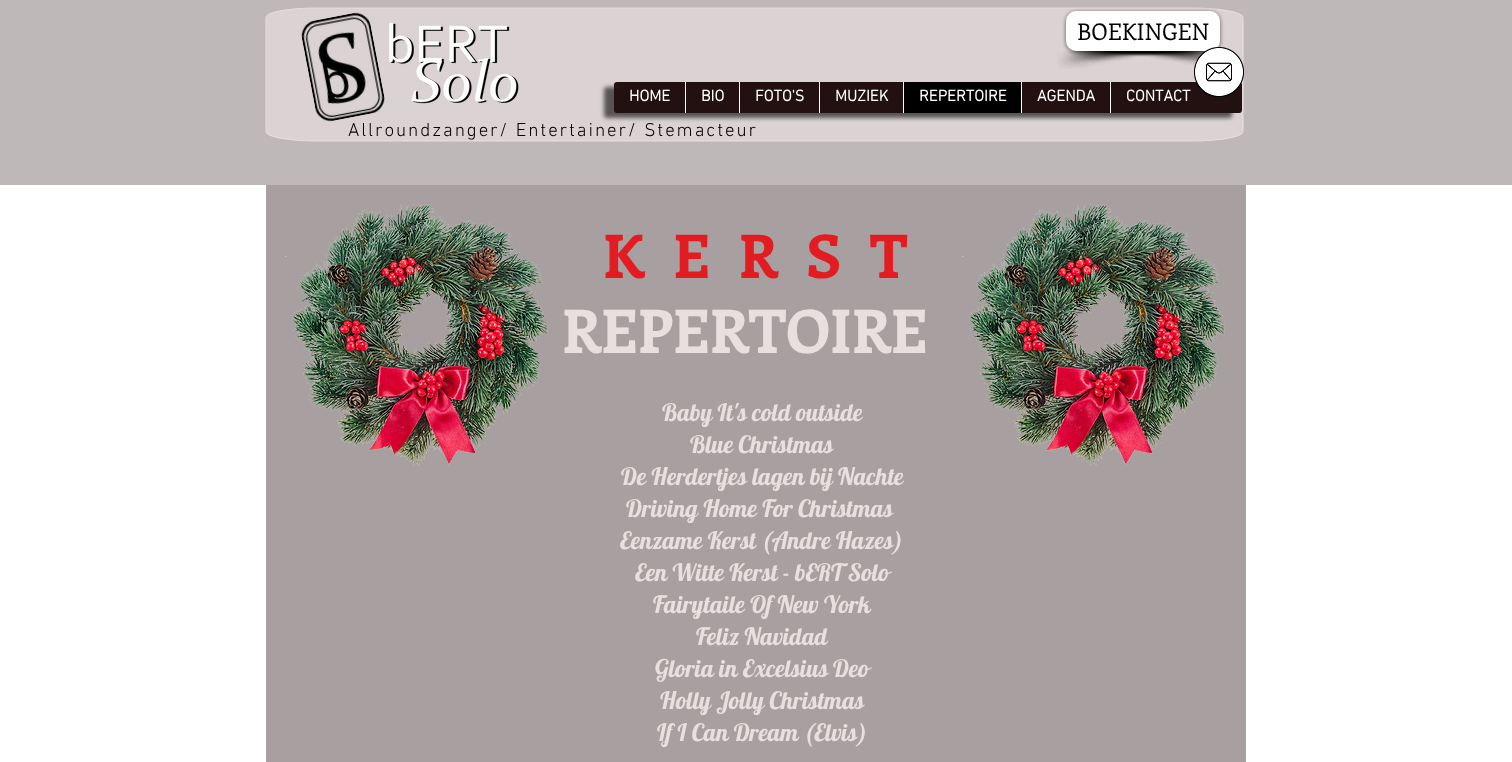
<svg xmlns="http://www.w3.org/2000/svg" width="1512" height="762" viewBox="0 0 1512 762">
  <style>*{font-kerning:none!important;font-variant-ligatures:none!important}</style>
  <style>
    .t1 { font: 23px Enriqueta; fill: #000; }
    .t2 { font: bold 16px 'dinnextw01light'; fill: #fff; }
    .t3 { font: 300 19px 'dinnextw01light'; letter-spacing: 1.9px; fill: #000; }
    .t4 { font: bold 60px Enriqueta; fill: #e21c21; }
    .t5 { font: bold 60px Enriqueta; fill: #e8dfdf; }
    .t6 { font: 24px Lobster; fill: #e8dfdf; }
  </style>
  <rect width="100%" height="100%" fill="#fff"/>
  <rect x="0" y="0" width="1512" height="185" fill="#beb8b8"/>
  <path d="M1191 141H318C289 141 266 137 266 132V17C266 12 289 8 318 8H1191C1220 8 1243 12 1243 17V132C1243 137 1220 141 1191 141Z" fill="#dbd3d3"/>
  <path d="M1191 141H318C289.5 141 266 137 266 131.5V17.5C266 12 289.5 8 318 8H1191C1219.5 8 1243 12 1243 17.5V131.5C1243 137 1219.5 141 1191 141Z" fill="none" stroke="#e8dfdf"/>
  <image x="301" y="12" width="84" height="110" href="images/1.png"/>
  <image x="391" y="23" width="128" height="81" href="images/3.png"/>
  <image x="389" y="22" width="128" height="81" href="images/2.png"/>
  <image x="1057" y="51" width="152" height="18" href="images/4.png"/>
  <image x="1075" y="51" width="134" height="14" href="images/5.png"/>
  <rect x="1066" y="12" width="154" height="40" rx="10" fill="#00000099" filter="blur(2px)"/>
  <rect x="1066" y="11" width="154" height="40" rx="10" fill="#fff"/>
  <text x="1077" y="40" class="t1">BOEKINGEN</text>
  <rect x="604" y="87" width="628" height="31" rx="3" fill="#00000099" filter="blur(2px)"/>
  <rect x="614" y="82" width="628" height="31" rx="3" fill="#231111"/>
  <text x="629" y="101" class="t2">HOME</text>
  <rect x="685" y="82" width="1" height="31" fill="#fff"/>
  <text x="701" y="101" class="t2">BIO</text>
  <rect x="739" y="82" width="1" height="31" fill="#fff"/>
  <text x="755" y="101" class="t2">FOTO'S</text>
  <rect x="819" y="82" width="1" height="31" fill="#fff"/>
  <text x="835" y="101" class="t2">MUZIEK</text>
  <rect x="904" y="82" width="117" height="31" fill="#000"/>
  <rect x="903" y="82" width="1" height="31" fill="#fff"/>
  <text x="919" y="101" class="t2">REPERTOIRE</text>
  <rect x="1021" y="82" width="1" height="31" fill="#fff"/>
  <text x="1037" y="101" class="t2">AGENDA</text>
  <rect x="1110" y="82" width="1" height="31" fill="#fff"/>
  <text x="1126" y="101" class="t2">CONTACT</text>
  <image x="1194" y="47" width="50" height="50" href="images/6.png"/>
  <text x="348" y="136" class="t3">Allroundzanger/ Entertainer/ Stemacteur</text>
  <rect x="266" y="185" width="980" height="577" fill="#a8a0a0"/>
  <image x="285" y="204" width="264" height="262" href="images/7.png"/>
  <text x="603" y="278" class="t4" xml:space="preserve">K  E  R  S  T</text>
  <image x="962" y="204" width="264" height="262" href="images/7.png"/>
  <text x="562" y="353" class="t5">REPERTOIRE</text>
  <text x="662" y="421" class="t6">Baby It's cold outside</text>
  <text x="690" y="453" class="t6">Blue Christmas</text>
  <text x="621" y="485" class="t6">De Herdertjes lagen bij Nachte</text>
  <text x="626" y="517" class="t6">Driving Home For Christmas</text>
  <text x="620" y="549" class="t6">Eenzame Kerst (Andre Hazes)</text>
  <text x="635" y="581" class="t6">Een Witte Kerst - bERT Solo</text>
  <text x="653" y="613" class="t6">Fairytaile Of New York</text>
  <text x="696" y="645" class="t6">Feliz Navidad</text>
  <text x="655" y="677" class="t6">Gloria in Excelsius</text>
  <text x="833" y="677" class="t6">Deo</text>
  <text x="660" y="709" class="t6">Holly Jolly Christmas</text>
  <text x="657" y="741" class="t6">If I Can Dream (Elvis)</text>
</svg>
